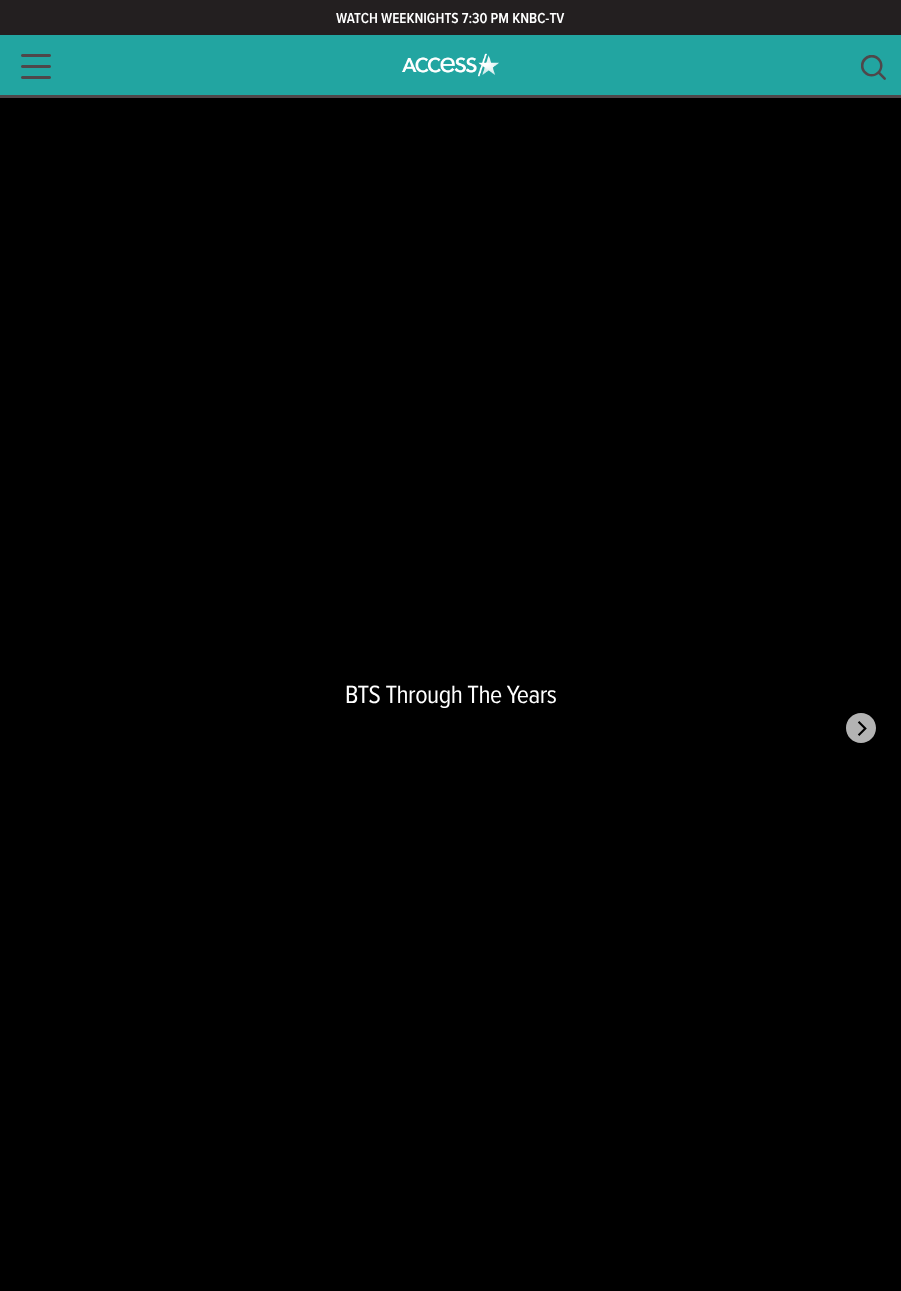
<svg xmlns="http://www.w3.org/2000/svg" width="901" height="1291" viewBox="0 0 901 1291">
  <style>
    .t1 { font: 600 15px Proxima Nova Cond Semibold; fill: #fff; }
    .t2 { font: 26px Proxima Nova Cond; letter-spacing: -0.5px; fill: #fff; }
  </style>
  <rect width="100%" height="100%" fill="#000"/>
  <rect x="0" y="0" width="901" height="35" fill="#231f20"/>
  <text x="336" y="23" class="t1">WATCH WEEKNIGHTS 7:30 PM KNBC-TV</text>
  <rect x="0" y="35" width="901" height="60" fill="#22a5a1"/>
  <image x="21" y="54" width="30" height="25" href="images/1.png"/>
  <image x="401" y="53" width="98" height="24" href="images/2.png"/>
  <image x="861" y="55" width="25" height="25" href="images/3.png"/>
  <rect x="0" y="95" width="901" height="3" fill="#4f474a"/>
  <text x="345" y="703" class="t2">BTS Through The Years</text>
  <image x="846" y="713" width="30" height="30" href="images/4.png"/>
</svg>
